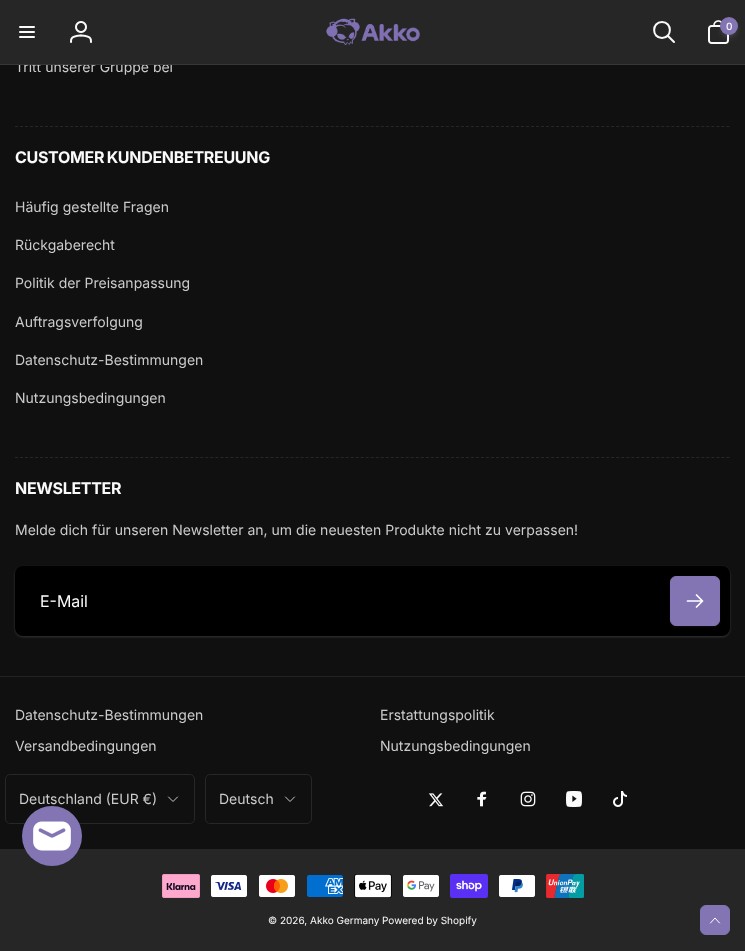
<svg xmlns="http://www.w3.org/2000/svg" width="745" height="951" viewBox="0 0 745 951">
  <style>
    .t1 { font: 14px Inter; fill: #cbcbcb; }
    .t2 { font: 500 10px Inter; fill: #fafafa; }
    .t3 { font: bold 16px Inter; letter-spacing: -0.3px; fill: #fafafa; }
    .t4 { font: 16px 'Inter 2'; fill: #fafafa; }
    .t5 { font: 10px Inter; fill: #fafafa; }
  </style>
  <rect width="100%" height="100%" fill="#101010"/>
  <text x="15" y="72" class="t1">Tritt unserer Gruppe bei</text>
  <rect x="0" y="0" width="745" height="64" fill="#262626"/>
  <rect x="0" y="64" width="745" height="1" fill="#373737"/>
  <image x="19" y="26" width="16" height="12" href="images/1.png"/>
  <image x="70" y="21" width="22" height="22" href="images/2.png"/>
  <image x="326" y="18" width="94" height="28" href="images/3.png"/>
  <path d="M674 42L667.5 35.5M662 38C672.5 38 672.5 22 662 22C651.5 22 651.5 38 662 38Z" fill="none" stroke="#fafafa" stroke-width="2" stroke-linecap="round" stroke-linejoin="round"/>
  <image x="708" y="20" width="21" height="24" href="images/4.png"/>
  <rect x="721" y="20" width="16" height="16" rx="8" fill="#fafafa0f" filter="blur(2px)"/>
  <rect x="721" y="22" width="16" height="16" rx="8" fill="#fafafa1a" filter="blur(3px)"/>
  <circle cx="729" cy="26" r="9" fill="#8375b3"/>
  <text x="726" y="30" class="t2">0</text>
  <path d="M15 126.5H730" fill="none" stroke="#272727" stroke-dasharray="3 2.01"/>
  <path d="M15 457.5H730" fill="none" stroke="#272727" stroke-dasharray="3 2.01"/>
  <text x="15" y="163" word-spacing="-1" class="t3">CUSTOMER KUNDENBETREUUNG</text>
  <text x="15" y="212" class="t1">Häufig gestellte Fragen</text>
  <text x="15" y="250" class="t1">Rückgaberecht</text>
  <text x="15" y="288" class="t1">Politik der Preisanpassung</text>
  <text x="15" y="327" class="t1">Auftragsverfolgung</text>
  <text x="15" y="365" class="t1">Datenschutz-Bestimmungen</text>
  <text x="15" y="403" class="t1">Nutzungsbedingungen</text>
  <text x="15" y="494" class="t3">NEWSLETTER</text>
  <text x="15" y="535" class="t1">Melde dich für unseren Newsletter an, um die neuesten Produkte nicht zu verpassen!</text>
  <rect x="15" y="567" width="715" height="70" rx="8" fill="#fafafa1a" filter="blur(1.5px)"/>
  <rect x="15" y="567" width="715" height="70" rx="8" fill="#fafafa0f" filter="blur(1px)"/>
  <rect x="15" y="566" width="715" height="70" rx="8" fill="#000"/>
  <text x="40" y="607" class="t4">E-Mail</text>
  <rect x="670" y="577" width="50" height="50" rx="6" fill="#fafafa0d" filter="blur(1px)"/>
  <rect x="670.5" y="576.5" width="49" height="49" rx="5.5" fill="#8375b3" stroke="#8375b3"/>
  <path d="M696.5 595L702.5 601M702.5 601L696.5 607M702.5 601H687.5" fill="none" stroke="#fff" stroke-width="1.7" stroke-linecap="round" stroke-linejoin="round"/>
  <rect x="0" y="676" width="745" height="1" fill="#232323"/>
  <text x="15" y="720" class="t1">Datenschutz-Bestimmungen</text>
  <text x="380" y="720" class="t1">Erstattungspolitik</text>
  <text x="15" y="751" class="t1">Versandbedingungen</text>
  <text x="380" y="751" class="t1">Nutzungsbedingungen</text>
  <rect x="5.5" y="774.5" width="189" height="49" rx="4.5" fill="none" stroke="#272727"/>
  <text x="19" y="804" class="t1">Deutschland (EUR €)</text>
  <path d="M177.5 797L173 801.5L168.5 797" fill="none" stroke="#cbcbcb" stroke-linecap="round" stroke-linejoin="round"/>
  <rect x="205.5" y="774.5" width="106" height="49" rx="4.5" fill="none" stroke="#272727"/>
  <text x="219" y="804" class="t1">Deutsch</text>
  <path d="M294.5 797L290 801.5L285.5 797" fill="none" stroke="#cbcbcb" stroke-linecap="round" stroke-linejoin="round"/>
  <image x="428" y="793" width="16" height="14" href="images/5.png"/>
  <image x="477" y="791" width="10" height="16" href="images/6.png"/>
  <image x="520" y="791" width="16" height="16" href="images/7.png"/>
  <image x="566" y="791" width="16" height="16" href="images/8.png"/>
  <image x="613" y="791" width="14" height="16" href="images/9.png"/>
  <rect x="0" y="849" width="745" height="102" fill="#262626"/>
  <image x="162" y="874" width="38" height="24" href="images/10.png"/>
  <image x="211" y="875" width="36" height="22" href="images/11.png"/>
  <image x="259" y="875" width="36" height="22" href="images/12.png"/>
  <image x="307" y="875" width="36" height="22" href="images/13.png"/>
  <image x="354" y="874" width="38" height="24" href="images/14.png"/>
  <image x="403" y="875" width="36" height="22" href="images/15.png"/>
  <image x="450" y="874" width="38" height="24" href="images/16.png"/>
  <image x="499" y="875" width="36" height="22" href="images/17.png"/>
  <image x="546" y="874" width="38" height="24" href="images/18.png"/>
  <text x="268" y="924" class="t5">© 2026, Akko Germany</text>
  <text x="382" y="924" class="t5">Powered by Shopify</text>
  <circle cx="52" cy="836" r="30" fill="#8375b3"/>
  <image x="33" y="821" width="38" height="30" href="images/19.png"/>
  <rect x="700.5" y="905.5" width="29" height="29" rx="5.5" fill="#8375b3" stroke="#8375b3"/>
  <path d="M710.5 923L715 918L719.5 923" fill="none" stroke="#fff" stroke-linecap="round" stroke-linejoin="round"/>
</svg>
